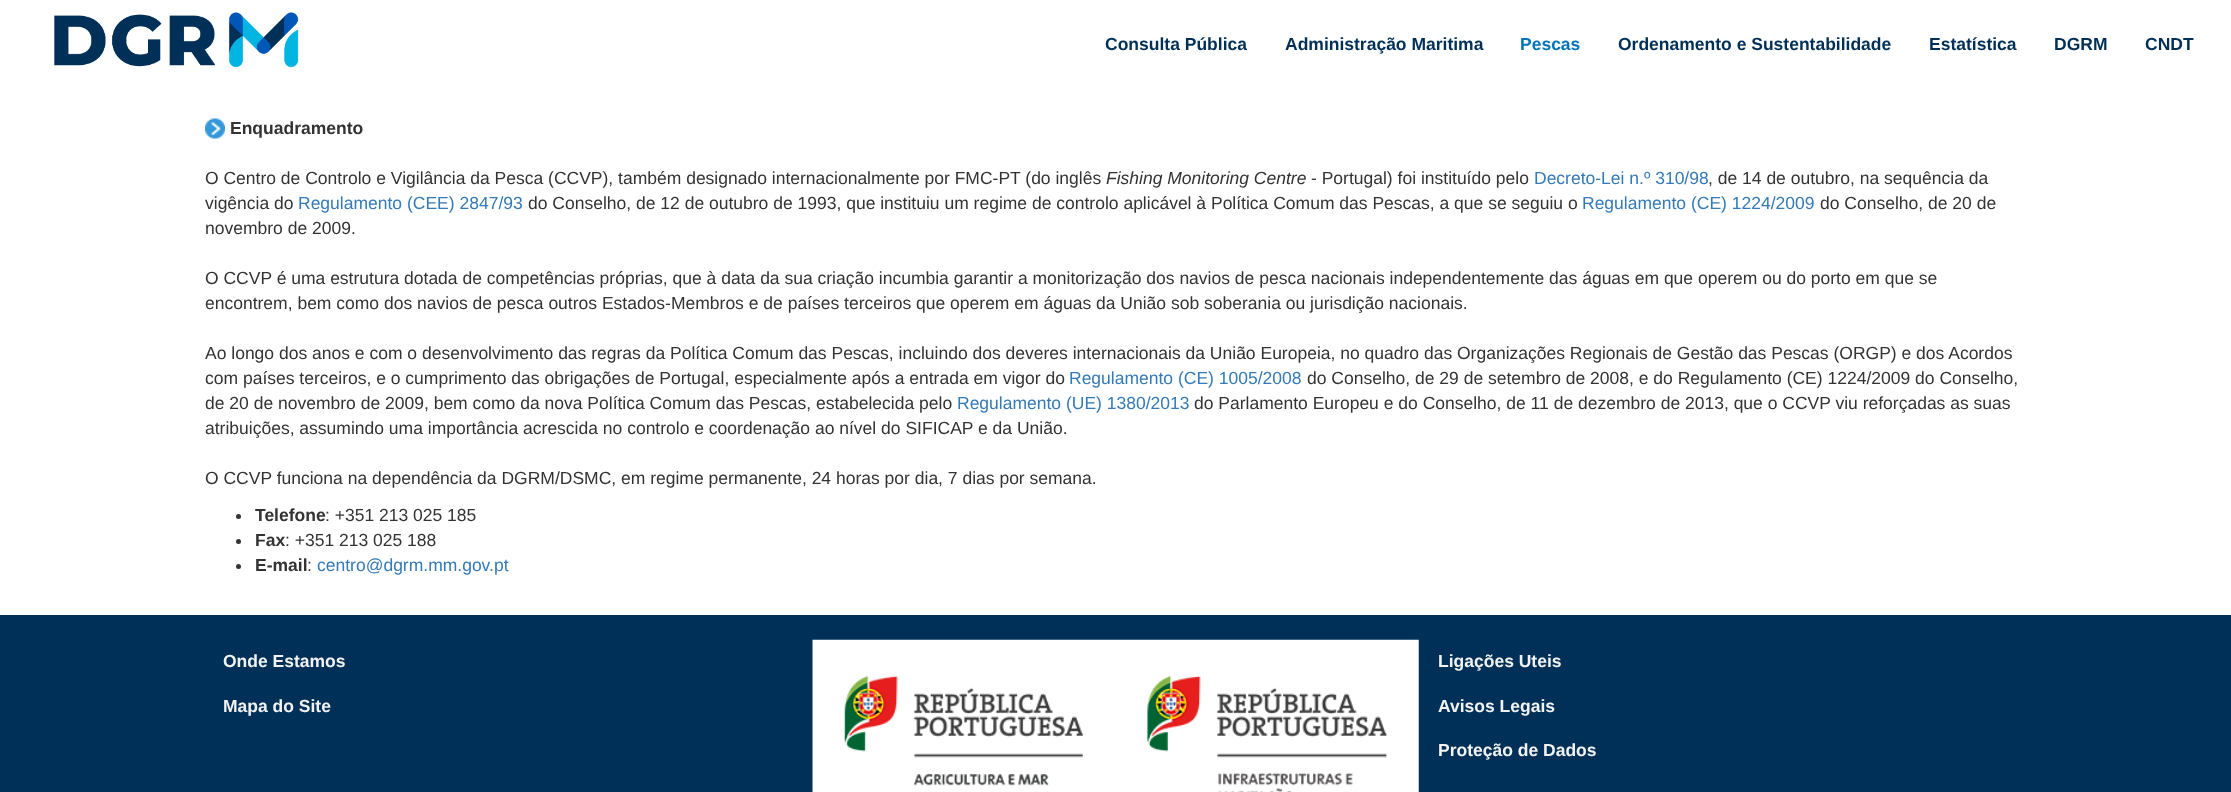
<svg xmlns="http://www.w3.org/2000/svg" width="2231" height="792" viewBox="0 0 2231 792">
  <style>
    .t1 { font: bold 17.5px Liberation Sans; fill: #003057; }
    .t2 { font: bold 17.5px Liberation Sans; fill: #0076b6; }
    .t3 { font: bold 17.5px Liberation Sans; fill: #333; }
    .t4 { font: 17.5px Liberation Sans; fill: #333; }
    .t5 { font: italic 17.5px Liberation Sans; fill: #333; }
    .t6 { font: 17.5px Liberation Sans; fill: #337ab7; }
    .t7 { font: bold 17.5px Liberation Sans; fill: #f2f2f2; }
  </style>
  <rect width="100%" height="100%" fill="#fff"/>
  <image x="54" y="12" width="245" height="56" href="images/1.png"/>
  <text x="1105" y="50" class="t1">Consulta Pública</text>
  <text x="1285" y="50" class="t1">Administração Maritima</text>
  <text x="1520" y="50" class="t2">Pescas</text>
  <text x="1618" y="50" class="t1">Ordenamento e Sustentabilidade</text>
  <text x="1929" y="50" class="t1">Estatística</text>
  <text x="2054" y="50" class="t1">DGRM</text>
  <text x="2145" y="50" class="t1">CNDT</text>
  <image x="205" y="118" width="20" height="21" href="images/2.png"/>
  <text x="230" y="134" class="t3">Enquadramento</text>
  <text x="205" y="184" class="t4">O Centro de Controlo e Vigilância da Pesca (CCVP), também designado internacionalmente por FMC-PT (do inglês</text>
  <text x="1106" y="184" class="t5">Fishing Monitoring Centre</text>
  <text x="1311" y="184" class="t4">- Portugal) foi instituído pelo</text>
  <text x="1534" y="184" class="t6">Decreto-Lei n.º 310/98</text>
  <text x="1708" y="184" class="t4">, de 14 de outubro, na sequência da</text>
  <text x="205" y="209" class="t4">vigência do</text>
  <text x="298" y="209" class="t6">Regulamento (CEE) 2847/93</text>
  <text x="528" y="209" class="t4">do Conselho, de 12 de outubro de 1993, que instituiu um regime de controlo aplicável à Política Comum das Pescas, a que se seguiu o</text>
  <text x="1582" y="209" class="t6">Regulamento (CE) 1224/2009</text>
  <text x="1820" y="209" class="t4">do Conselho, de 20 de</text>
  <text x="205" y="234" class="t4">novembro de 2009.</text>
  <text x="205" y="284" class="t4">O CCVP é uma estrutura dotada de competências próprias, que à data da sua criação incumbia garantir a monitorização dos navios de pesca nacionais independentemente das águas em que operem ou do porto em que se</text>
  <text x="205" y="309" class="t4">encontrem, bem como dos navios de pesca outros Estados-Membros e de países terceiros que operem em águas da União sob soberania ou jurisdição nacionais.</text>
  <text x="205" y="359" class="t4">Ao longo dos anos e com o desenvolvimento das regras da Política Comum das Pescas, incluindo dos deveres internacionais da União Europeia, no quadro das Organizações Regionais de Gestão das Pescas (ORGP) e dos Acordos</text>
  <text x="205" y="384" class="t4">com países terceiros, e o cumprimento das obrigações de Portugal, especialmente após a entrada em vigor do</text>
  <text x="1069" y="384" class="t6">Regulamento (CE) 1005/2008</text>
  <text x="1307" y="384" class="t4">do Conselho, de 29 de setembro de 2008, e do Regulamento (CE) 1224/2009 do Conselho,</text>
  <text x="205" y="409" class="t4">de 20 de novembro de 2009, bem como da nova Política Comum das Pescas, estabelecida pelo</text>
  <text x="957" y="409" class="t6">Regulamento (UE) 1380/2013</text>
  <text x="1194" y="409" class="t4">do Parlamento Europeu e do Conselho, de 11 de dezembro de 2013, que o CCVP viu reforçadas as suas</text>
  <text x="205" y="434" class="t4">atribuições, assumindo uma importância acrescida no controlo e coordenação ao nível do SIFICAP e da União.</text>
  <text x="205" y="484" class="t4">O CCVP funciona na dependência da DGRM/DSMC, em regime permanente, 24 horas por dia, 7 dias por semana.</text>
  <circle cx="238.5" cy="516.5" r="2.5" fill="#333"/>
  <text x="255" y="521" class="t3">Telefone</text>
  <text x="325" y="521" class="t4">: +351 213 025 185</text>
  <circle cx="238.5" cy="541.5" r="2.5" fill="#333"/>
  <text x="255" y="546" class="t3">Fax</text>
  <text x="285" y="546" class="t4">: +351 213 025 188</text>
  <circle cx="238.5" cy="566.5" r="2.5" fill="#333"/>
  <text x="255" y="571" class="t3">E-mail</text>
  <text x="307" y="571" class="t4">:</text>
  <text x="317" y="571" class="t6">centro@dgrm.mm.gov.pt</text>
  <rect x="0" y="615" width="2231" height="177" fill="#003057"/>
  <text x="223" y="667" class="t7">Onde Estamos</text>
  <text x="223" y="712" class="t7">Mapa do Site</text>
  <image x="812" y="639" width="303" height="153" href="images/3.png"/>
  <image x="1115" y="639" width="304" height="153" href="images/4.png"/>
  <text x="1438" y="667" class="t7">Ligações Uteis</text>
  <text x="1438" y="712" class="t7">Avisos Legais</text>
  <text x="1438" y="756" class="t7">Proteção de Dados</text>
</svg>
